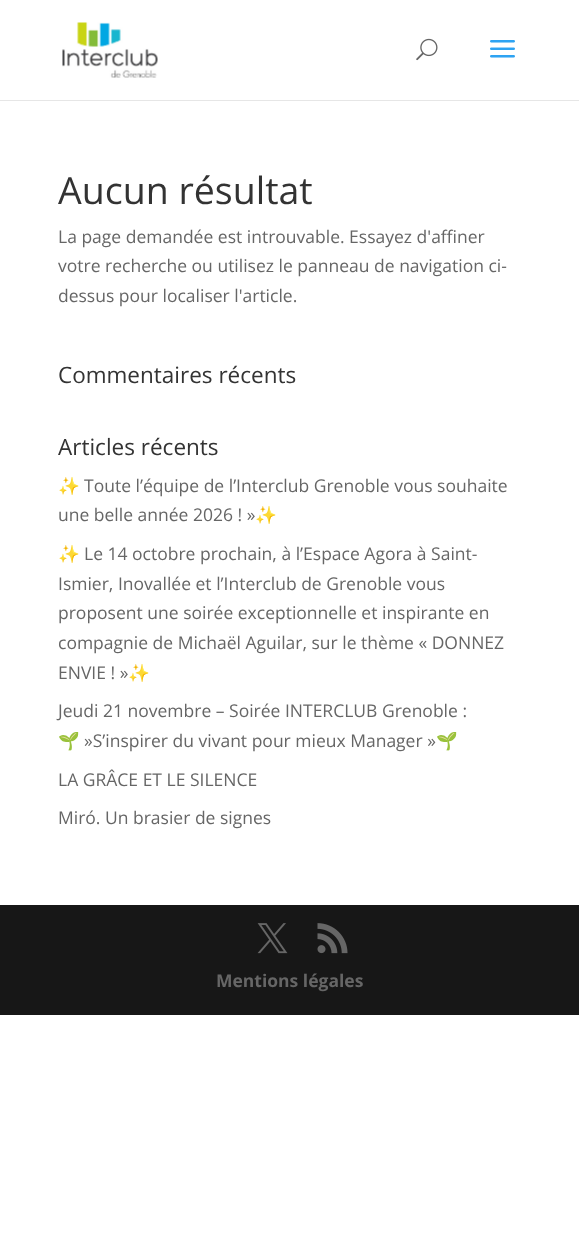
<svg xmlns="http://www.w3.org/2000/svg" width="579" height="1251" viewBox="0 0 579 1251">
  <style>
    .t1 { font: 37.5px Open Sans; fill: #333; }
    .t2 { font: 17.5px Open Sans; fill: #666; }
    .t3 { font: 22.5px Open Sans; fill: #333; }
    .t4 { font: 17.5px Noto Color Emoji; fill: #666; }
    .t5 { font: bold 17.5px Open Sans; fill: #666; }
  </style>
  <rect width="100%" height="100%" fill="#fff"/>
  <rect x="0" y="100" width="579" height="1" fill="#e6e6e6"/>
  <image x="62" y="22" width="96" height="56" href="images/1.png"/>
  <image x="416" y="38" width="22" height="23" href="images/2.png"/>
  <image x="490" y="40" width="25" height="18" href="images/3.png"/>
  <text x="58" y="204" class="t1">Aucun résultat</text>
  <text x="58" y="243" class="t2">La page demandée est introuvable. Essayez d'affiner</text>
  <text x="58" y="272" class="t2">votre recherche ou utilisez le panneau de navigation ci-</text>
  <text x="58" y="302" class="t2">dessus pour localiser l'article.</text>
  <text x="58" y="383" class="t3">Commentaires récents</text>
  <text x="58" y="455" class="t3">Articles récents</text>
  <text x="58" y="492" class="t4">✨</text>
  <text x="84" y="492" class="t2">Toute l’équipe de l’Interclub Grenoble vous souhaite</text>
  <text x="58" y="521" class="t2">une belle année 2026 ! »</text>
  <text x="255" y="521" class="t4">✨</text>
  <text x="58" y="560" class="t4">✨</text>
  <text x="84" y="560" class="t2">Le 14 octobre prochain, à l’Espace Agora à Saint-</text>
  <text x="58" y="590" class="t2">Ismier, Inovallée et l’Interclub de Grenoble vous</text>
  <text x="58" y="619" class="t2">proposent une soirée exceptionnelle et inspirante en</text>
  <text x="58" y="649" class="t2">compagnie de Michaël Aguilar, sur le thème « DONNEZ</text>
  <text x="58" y="679" class="t2">ENVIE ! »</text>
  <text x="128" y="679" class="t4">✨</text>
  <text x="58" y="717" class="t2">Jeudi 21 novembre – Soirée INTERCLUB Grenoble :</text>
  <text x="58" y="747" class="t4">🌱</text>
  <text x="84" y="747" class="t2">»S’inspirer du vivant pour mieux Manager »</text>
  <text x="436" y="747" class="t4">🌱</text>
  <text x="58" y="786" class="t2">LA GRÂCE ET LE SILENCE</text>
  <text x="58" y="824" class="t2">Miró. Un brasier de signes</text>
  <rect x="0" y="905" width="579" height="110" fill="#171717"/>
  <image x="257" y="923" width="31" height="31" href="images/4.png"/>
  <image x="317" y="923" width="31" height="31" href="images/5.png"/>
  <text x="216" y="987" class="t5">Mentions légales</text>
</svg>
